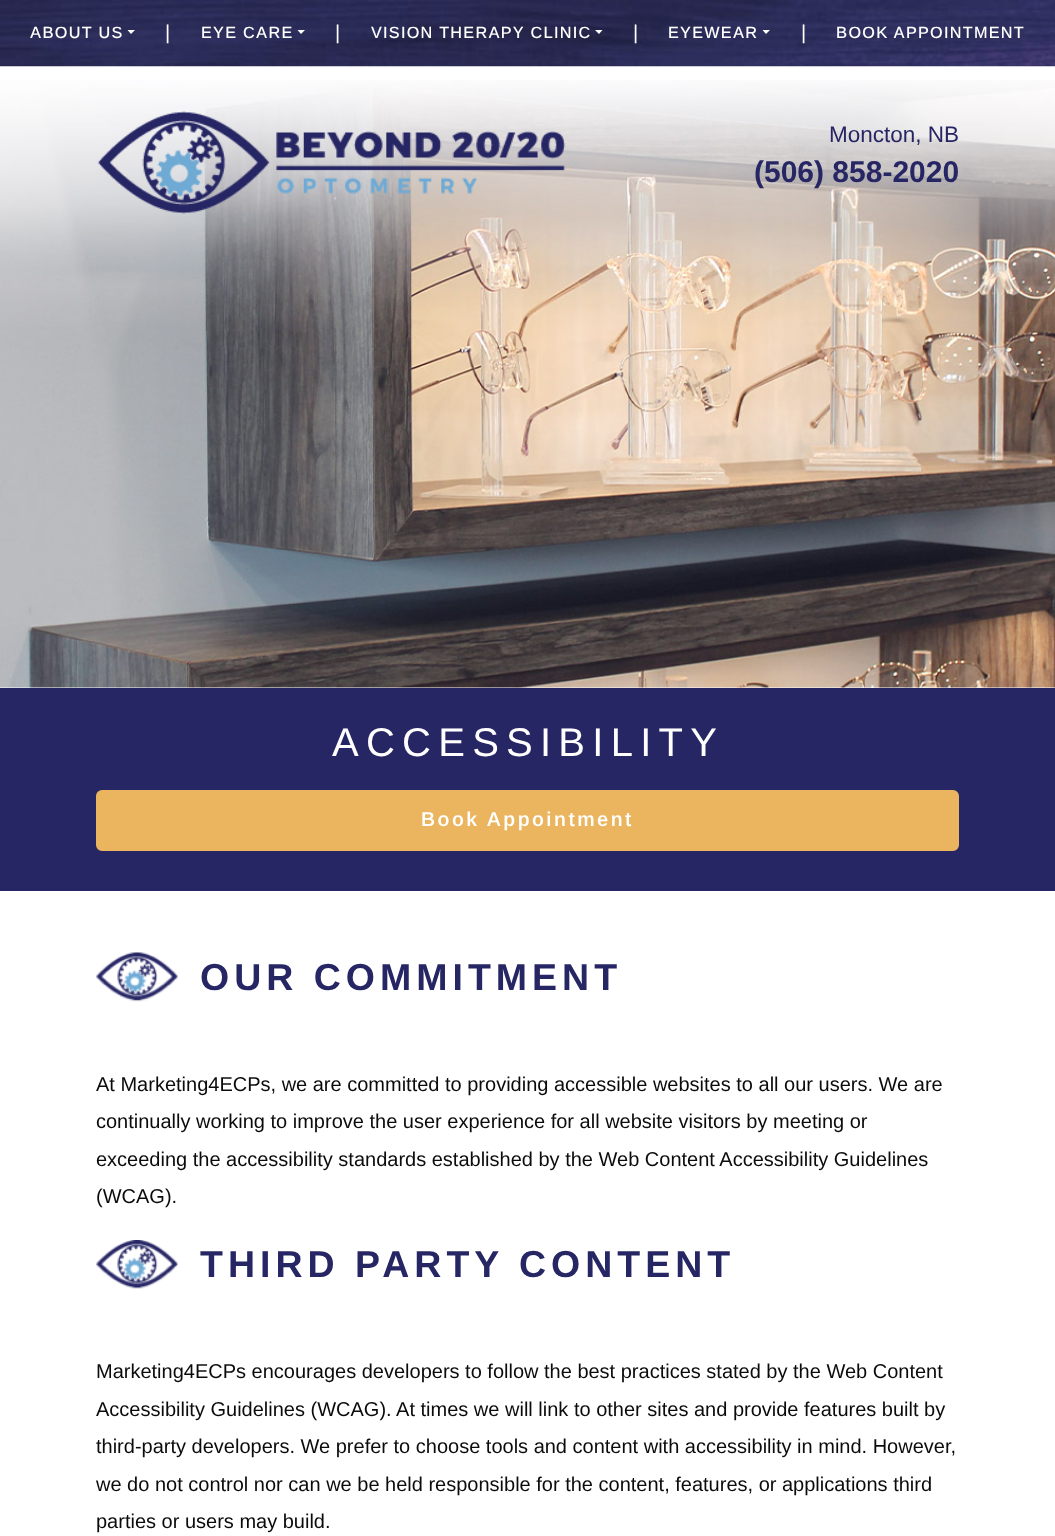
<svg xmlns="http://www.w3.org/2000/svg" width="1055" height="1536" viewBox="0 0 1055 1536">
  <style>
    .t1 { font: 500 16.25px Arimo; letter-spacing: 1.25px; fill: #fff; }
    .t2 { font: 20px Arimo; fill: #fff; }
    .t3 { font: 22.5px Arimo; fill: #272664; }
    .t4 { font: bold 30px Arimo; fill: #272664; }
    .t5 { font: 40px Arimo; letter-spacing: 7.25px; fill: #fff; }
    .t6 { font: 600 20px Arimo; letter-spacing: 2.5px; fill: #fff; }
    .t7 { font: bold 37.5px Arimo; letter-spacing: 5px; fill: #272664; }
    .t8 { font: 20px Arimo; fill: #0c0b0b; }
  </style>
  <rect width="100%" height="100%" fill="#fff"/>
  <image x="0" y="80" width="1055" height="608" href="images/1.png"/>
  <image x="0" y="0" width="1055" height="67" href="images/2.png"/>
  <text x="30" y="38" class="t1">ABOUT US</text>
  <path d="M127.5 30H135L131 34Z" fill="#fff"/>
  <text x="165" y="39" class="t2">|</text>
  <text x="201" y="38" class="t1">EYE CARE</text>
  <path d="M297.5 30H305L301 34Z" fill="#fff"/>
  <text x="335" y="39" class="t2">|</text>
  <text x="371" y="38" class="t1">VISION THERAPY CLINIC</text>
  <path d="M595 30H602.5L599 34Z" fill="#fff"/>
  <text x="633" y="39" class="t2">|</text>
  <text x="668" y="38" class="t1">EYEWEAR</text>
  <path d="M762.5 30H770L766 34Z" fill="#fff"/>
  <text x="801" y="39" class="t2">|</text>
  <text x="836" y="38" class="t1">BOOK APPOINTMENT</text>
  <image x="97" y="111" width="469" height="103" href="images/3.png"/>
  <text x="829" y="142" class="t3">Moncton, NB</text>
  <text x="754" y="182" class="t4">(506) 858-2020</text>
  <rect x="0" y="688" width="1055" height="203" fill="#272664"/>
  <text x="332" y="756" class="t5">ACCESSIBILITY</text>
  <rect x="98" y="792" width="859" height="57" rx="4" fill="#ebb55f" stroke="#ebb55f" stroke-width="4"/>
  <text x="421" y="826" class="t6">Book Appointment</text>
  <image x="96" y="952" width="82" height="50" href="images/4.png"/>
  <text x="200" y="990" class="t7">OUR COMMITMENT</text>
  <text x="96" y="1091" class="t8">At Marketing4ECPs, we are committed to providing accessible websites to all our users. We are</text>
  <text x="96" y="1128" class="t8">continually working to improve the user experience for all website visitors by meeting or</text>
  <text x="96" y="1166" class="t8">exceeding the accessibility standards established by the Web Content Accessibility Guidelines</text>
  <text x="96" y="1203" class="t8">(WCAG).</text>
  <image x="96" y="1240" width="82" height="49" href="images/5.png"/>
  <text x="200" y="1277" class="t7">THIRD PARTY CONTENT</text>
  <text x="96" y="1378" class="t8">Marketing4ECPs encourages developers to follow the best practices stated by the Web Content</text>
  <text x="96" y="1416" class="t8">Accessibility Guidelines (WCAG). At times we will link to other sites and provide features built by</text>
  <text x="96" y="1453" class="t8">third-party developers. We prefer to choose tools and content with accessibility in mind. However,</text>
  <text x="96" y="1491" class="t8">we do not control nor can we be held responsible for the content, features, or applications third</text>
  <text x="96" y="1528" class="t8">parties or users may build.</text>
</svg>
